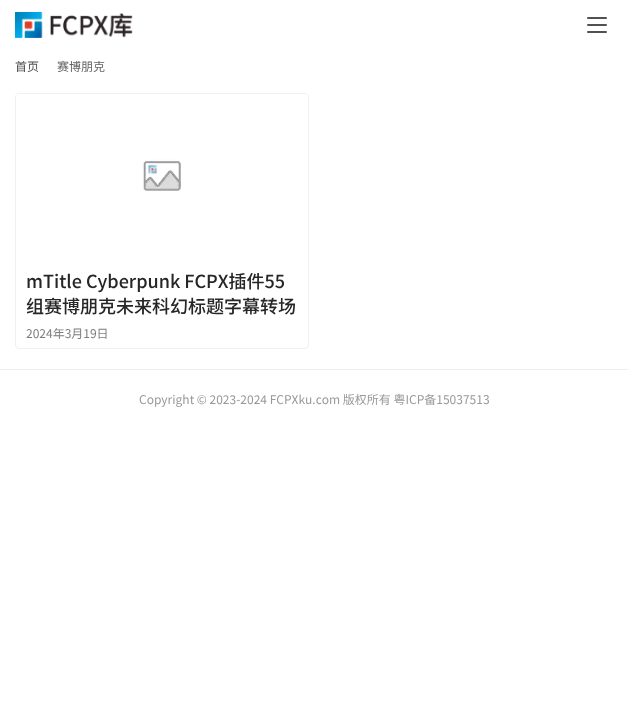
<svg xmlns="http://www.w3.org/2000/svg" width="628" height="714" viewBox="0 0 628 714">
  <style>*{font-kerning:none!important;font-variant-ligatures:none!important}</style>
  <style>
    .t1 { font: 12px Noto Sans CJK SC; fill: #515151; }
    .t2 { font: 12px Noto Sans CJK SC; fill: #636363; }
    .t3 { font: 500 18px Noto Sans CJK SC; fill: #262626; }
    .t4 { font: 12px Noto Sans CJK SC; fill: #7d7d7d; }
    .t5 { font: 12px Noto Sans CJK SC; fill: #999; }
  </style>
  <rect width="100%" height="100%" fill="#fff"/>
  <image x="15" y="12" width="118" height="26" href="images/1.png"/>
  <rect x="587" y="17" width="20" height="2" rx="1" fill="#515151"/>
  <rect x="587" y="24" width="20" height="2" rx="1" fill="#515151"/>
  <rect x="587" y="31" width="20" height="2" rx="1" fill="#515151"/>
  <text x="15" y="71" class="t1">首页</text>
  <text x="57" y="71" class="t2">赛博朋克</text>
  <rect x="15.5" y="93.5" width="293" height="255" rx="3.5" fill="none" stroke="#f0f0f0"/>
  <image x="16" y="94" width="292" height="164" href="images/2.png"/>
  <text x="26" y="288" class="t3">mTitle Cyberpunk FCPX插件55</text>
  <text x="26" y="313" class="t3">组赛博朋克未来科幻标题字幕转场</text>
  <text x="26" y="338" class="t4">2024年3月19日</text>
  <rect x="0" y="369" width="628" height="1" fill="#eee"/>
  <text x="139" y="404" class="t5">Copyright © 2023-2024 FCPXku.com 版权所有 粤ICP备15037513</text>
</svg>
